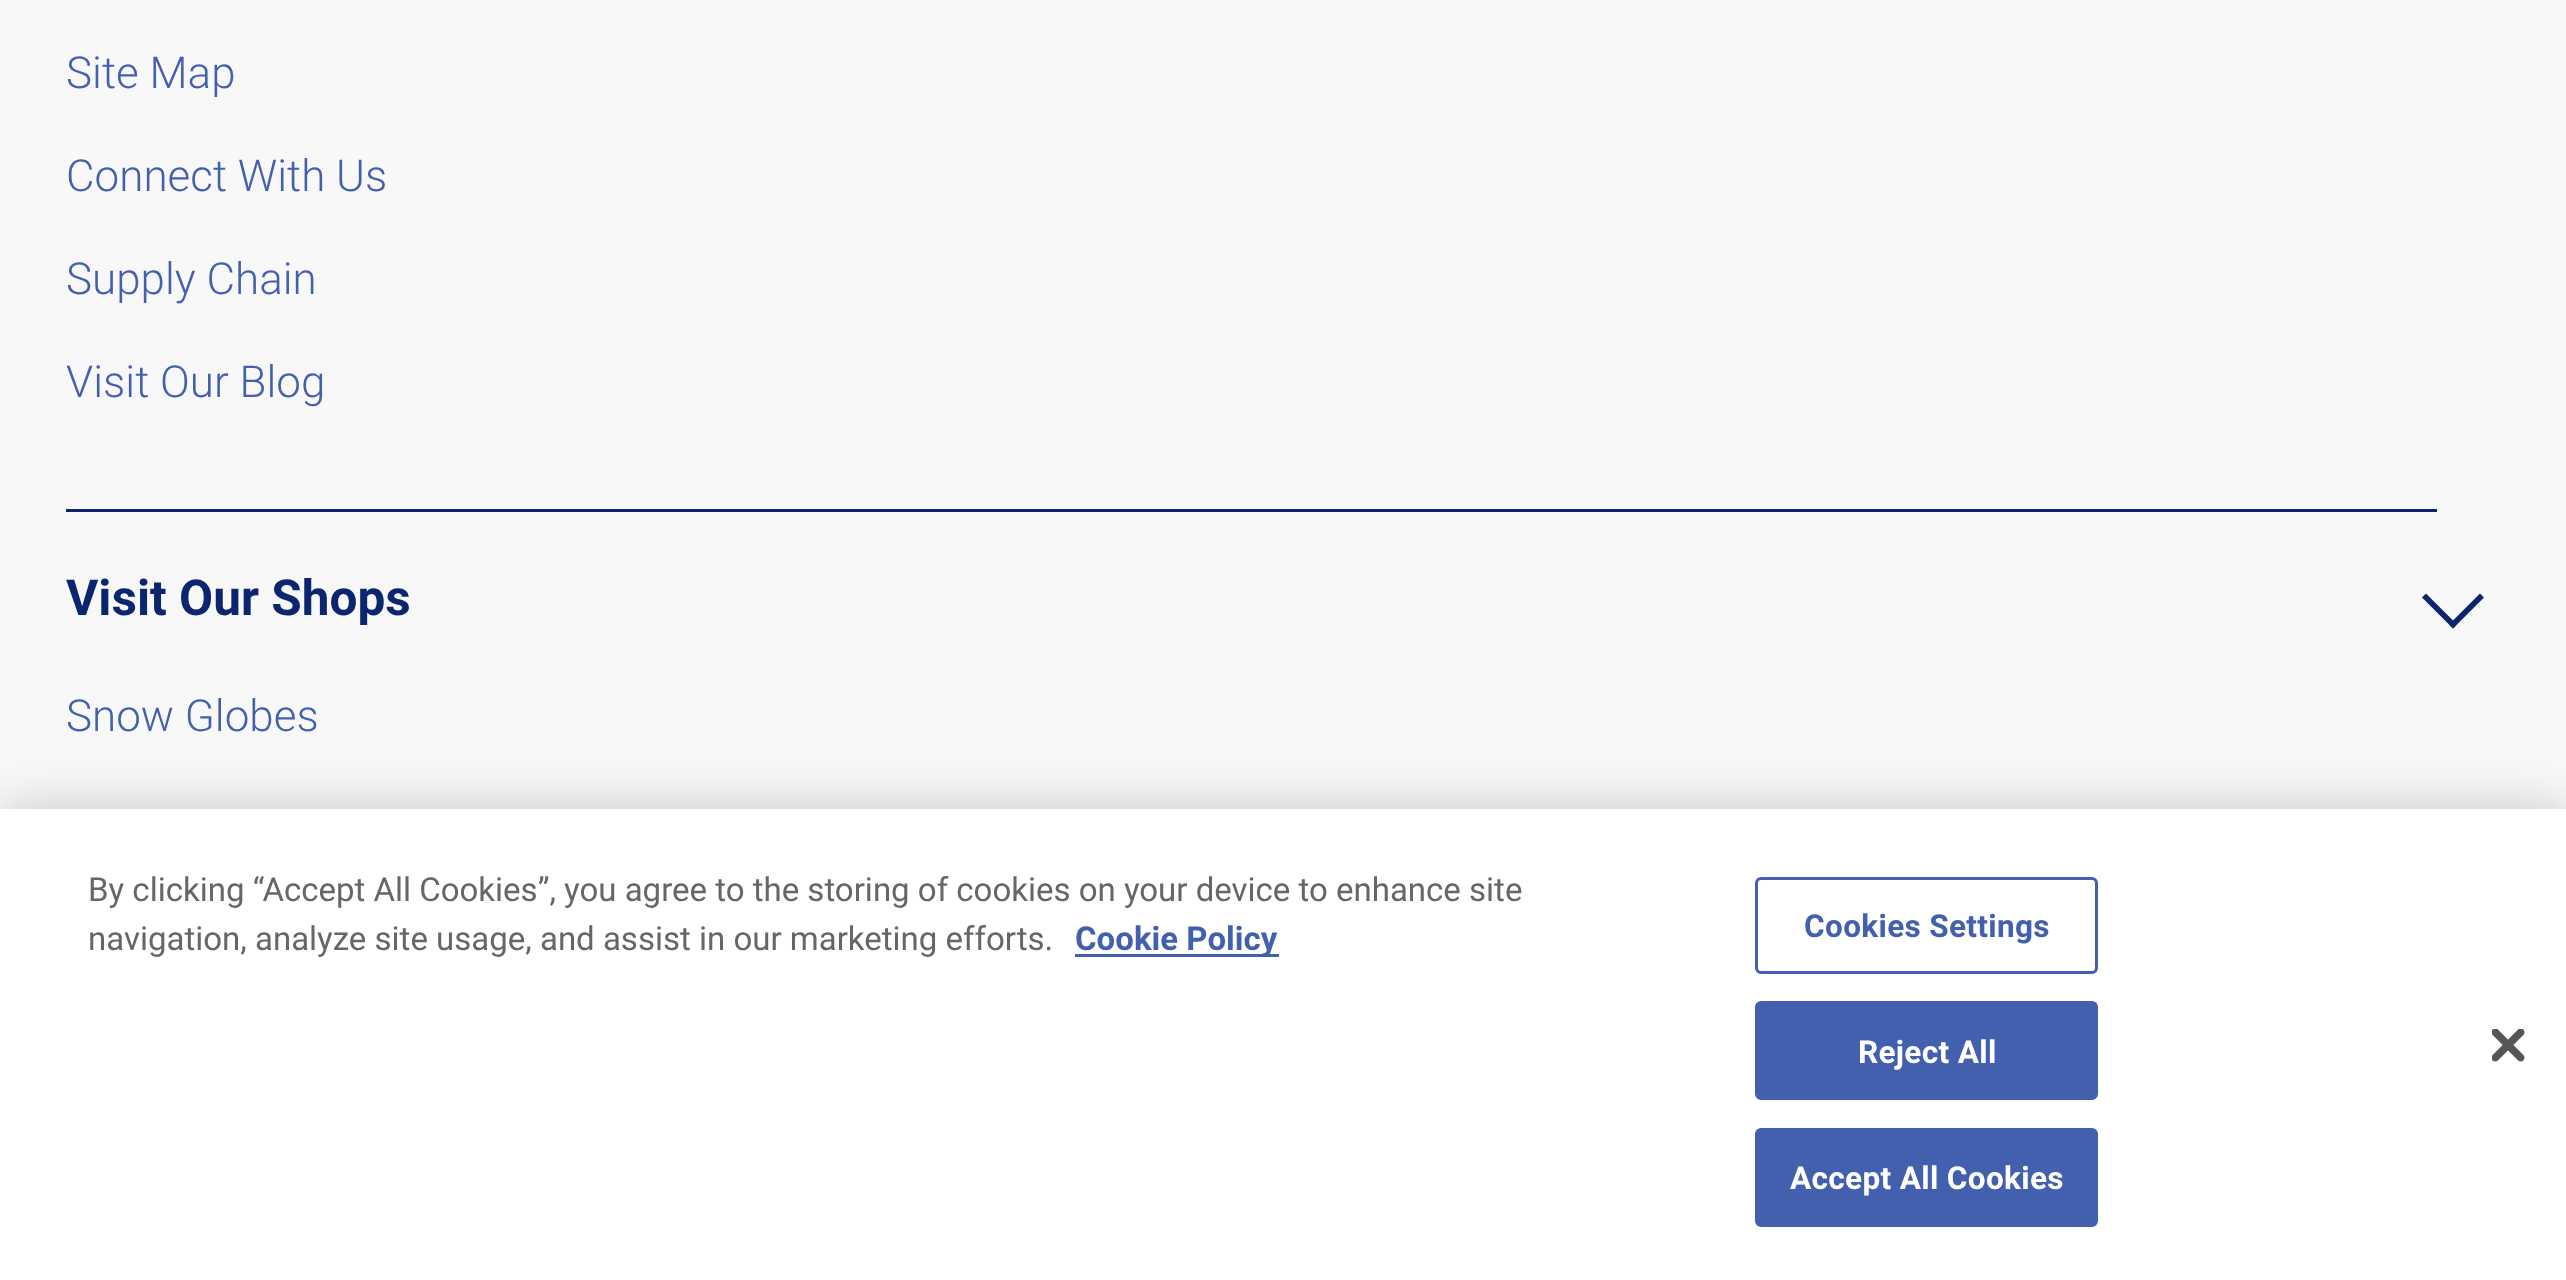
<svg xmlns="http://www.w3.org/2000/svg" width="2566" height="1280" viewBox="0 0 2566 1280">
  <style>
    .t1 { font: 300 44px Roboto; fill: #4360ae; }
    .t2 { font: bold 49.5px Roboto; fill: #0b266e; }
    .t3 { font: 33px Roboto; fill: #686664; }
    .t4 { font: bold 33px Roboto; fill: #4360ae; }
    .t5 { font: bold 31.6px Roboto; letter-spacing: 0.3px; fill: #4360ae; }
    .t6 { font: bold 31.6px Roboto; letter-spacing: 0.3px; fill: #fff; }
  </style>
  <rect width="100%" height="100%" fill="#f9f8f8"/>
  <rect x="66" y="509" width="2371" height="3" fill="#0b266e"/>
  <text x="66" y="88" class="t1">Site Map</text>
  <text x="66" y="191" class="t1">Connect With Us</text>
  <text x="66" y="294" class="t1">Supply Chain</text>
  <text x="66" y="397" class="t1">Visit Our Blog</text>
  <text x="66" y="615" class="t2">Visit Our Shops</text>
  <path d="M2480 593.5L2484 597.5L2453 628.5L2449 624.5Z" fill="#0b266e"/>
  <path d="M2426 593.5L2457 624.5L2453 628.5L2422 597.5Z" fill="#0b266e"/>
  <text x="66" y="731" class="t1">Snow Globes</text>
  <rect x="0" y="809" width="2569" height="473" fill="#00000033" filter="blur(25px)"/>
  <rect x="0" y="809" width="2566" height="471" fill="#fff"/>
  <text x="88" y="901" class="t3">By clicking “Accept All Cookies”, you agree to the storing of cookies on your device to enhance site</text>
  <text x="88" y="950" class="t3">navigation, analyze site usage, and assist in our marketing efforts.</text>
  <rect x="1075" y="954" width="204" height="3" fill="#4360ae"/>
  <text x="1075" y="950" class="t4">Cookie Policy</text>
  <rect x="1756.5" y="878.5" width="340" height="94" rx="4.5" fill="none" stroke="#4360ae" stroke-width="3"/>
  <text x="1804" y="937" class="t5">Cookies Settings</text>
  <rect x="1756.5" y="1002.5" width="340" height="96" rx="4.5" fill="#4360ae" stroke="#4360ae" stroke-width="3"/>
  <text x="1858" y="1063" class="t6">Reject All</text>
  <rect x="1756.5" y="1129.5" width="340" height="96" rx="4.5" fill="#4360ae" stroke="#4360ae" stroke-width="3"/>
  <text x="1790" y="1189" class="t6">Accept All Cookies</text>
  <image x="2492" y="1029" width="33" height="33" href="images/1.png"/>
</svg>
